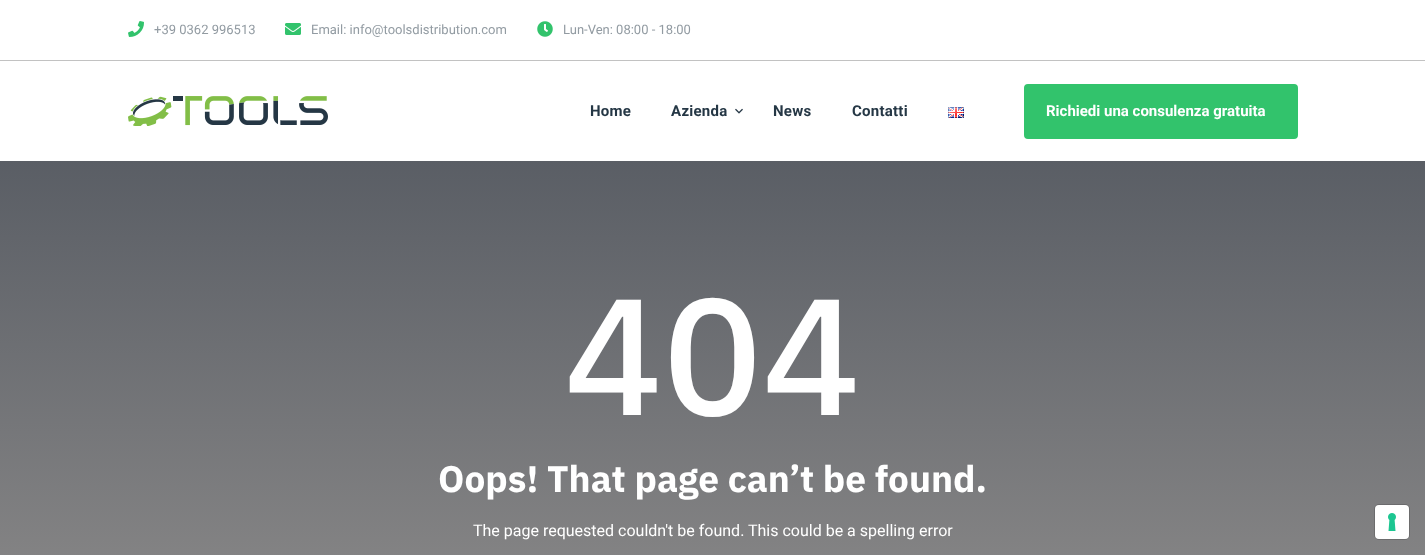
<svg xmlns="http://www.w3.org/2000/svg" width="1425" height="555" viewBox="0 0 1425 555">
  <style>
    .t1 { font: 13px Roboto; fill: #929ba2; }
    .t2 { font: bold 15px Roboto; letter-spacing: 0.25px; fill: #253745; }
    .t3 { font: bold 15px Roboto; fill: #fff; }
    .t4 { font: 500 165px IBM Plex Sans; fill: #fff; }
    .t5 { font: bold 37px IBM Plex Sans; fill: #fff; }
    .t6 { font: 16px Roboto; fill: #fff; }
  </style>
  <defs>
    <linearGradient id="g1" gradientUnits="userSpaceOnUse" x1="713" y1="161" x2="713" y2="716"><stop offset="0" stop-color="#5a5e65"/><stop offset="0.82" stop-color="#898888"/></linearGradient>
  </defs>
  <rect width="100%" height="100%" fill="#fff"/>
  <rect x="0" y="60" width="1425" height="1" fill="#c2c2c2"/>
  <image x="128" y="21" width="16" height="16" href="images/1.png"/>
  <text x="154" y="34" class="t1">+39 0362 996513</text>
  <image x="285" y="23" width="16" height="12" href="images/2.png"/>
  <text x="311" y="34" class="t1">Email: info@toolsdistribution.com</text>
  <image x="537" y="21" width="16" height="16" href="images/3.png"/>
  <text x="563" y="34" class="t1">Lun-Ven: 08:00 - 18:00</text>
  <image x="128" y="96" width="200" height="30" href="images/4.png"/>
  <text x="590" y="116" class="t2">Home</text>
  <text x="671" y="116" class="t2">Azienda</text>
  <image x="735" y="108" width="8" height="6" href="images/5.png"/>
  <text x="773" y="116" class="t2">News</text>
  <text x="852" y="116" class="t2">Contatti</text>
  <image x="948" y="107" width="16" height="11" href="images/6.png"/>
  <rect x="1025" y="85" width="272" height="53" rx="3" fill="#32c36c" stroke="#32c36c" stroke-width="2"/>
  <text x="1046" y="116" class="t3">Richiedi una consulenza gratuita</text>
  <rect x="0" y="161" width="1425" height="394" fill="url(#g1)"/>
  <text x="564" y="415" class="t4">404</text>
  <text x="438" y="492" class="t5">Oops! That page can’t be found.</text>
  <text x="473" y="536" class="t6">The page requested couldn't be found. This could be a spelling error</text>
  <rect x="1374.5" y="504.5" width="35" height="35" rx="4.5" fill="none" stroke="#00000026"/>
  <rect x="1375" y="505" width="34" height="34" rx="4" fill="#fff"/>
  <image x="1388" y="513" width="8" height="18" href="images/7.png"/>
</svg>
